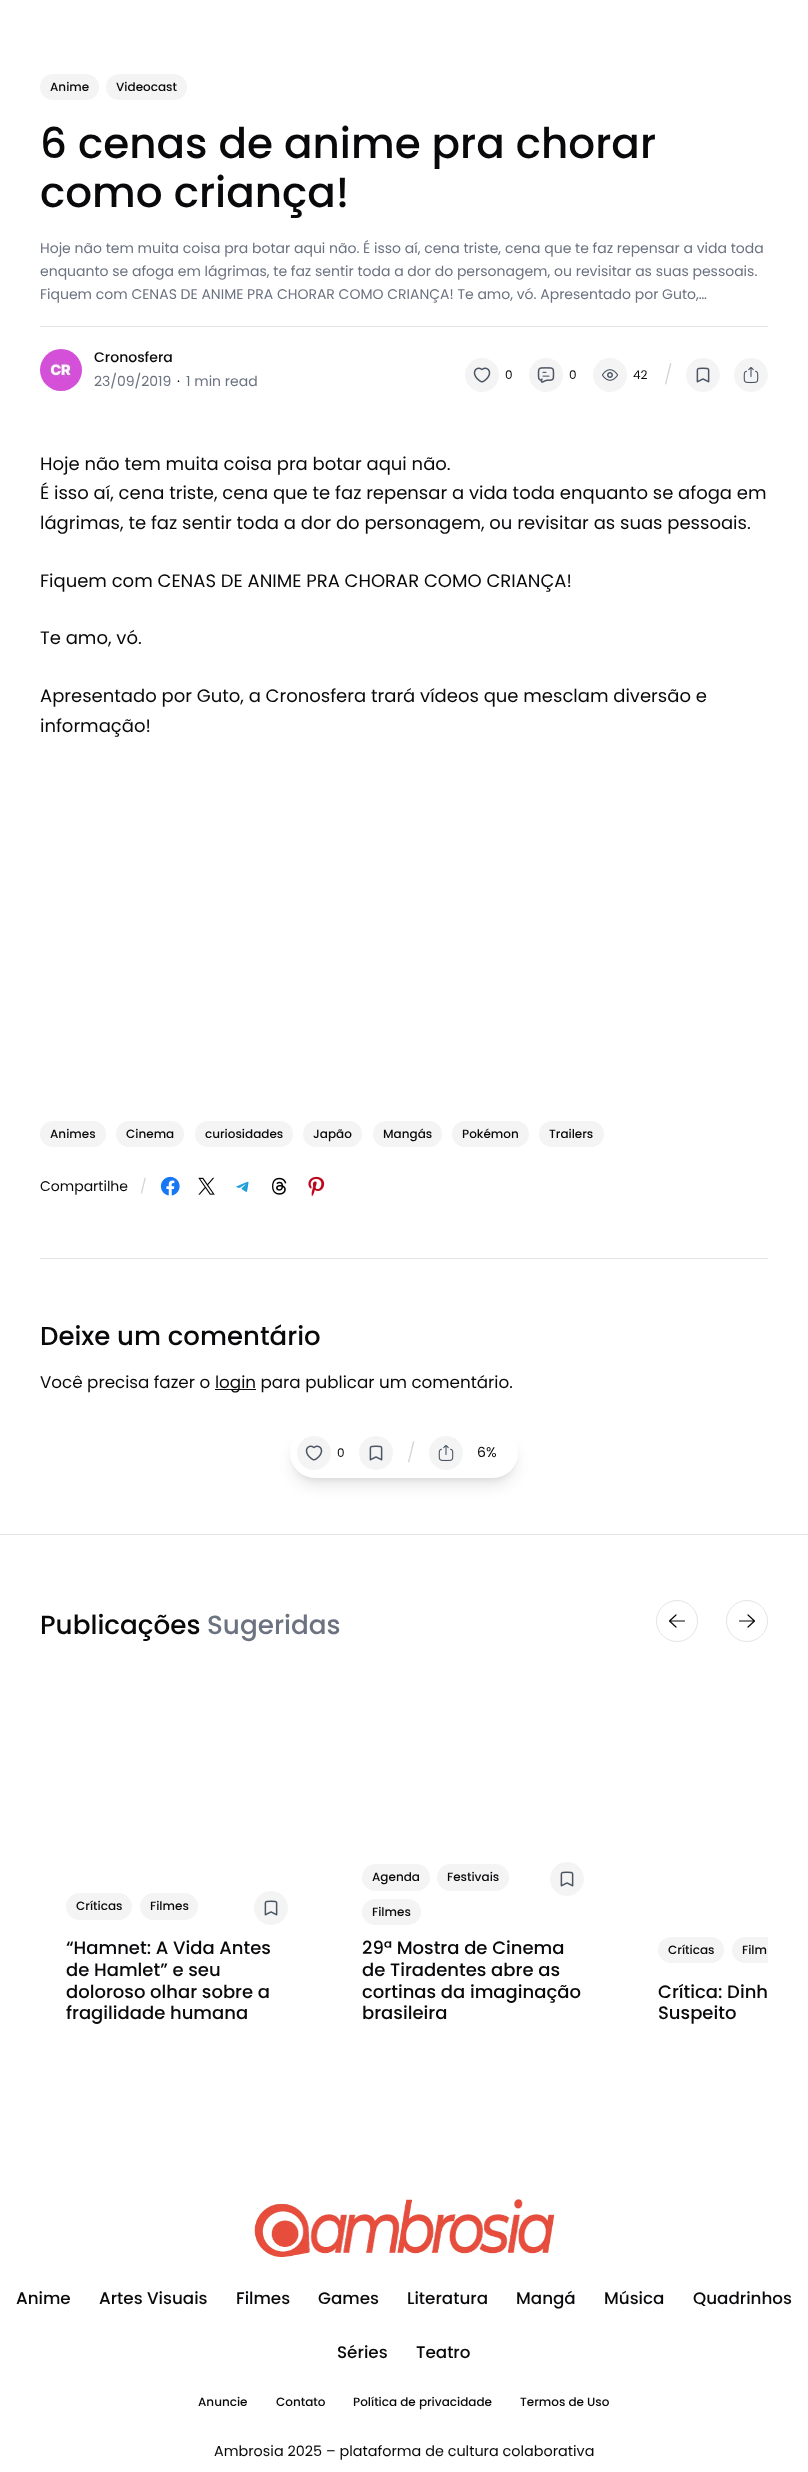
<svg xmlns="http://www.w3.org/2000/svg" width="808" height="2472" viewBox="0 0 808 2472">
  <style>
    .t1 { font: 500 12px Poppins; fill: #09090b; }
    .t2 { font: 500 42.1px Poppins; fill: #09090b; }
    .t3 { font: 14px Poppins; fill: #6b7280; }
    .t4 { font: 500 14px Poppins; fill: #09090b; }
    .t5 { font: 14px Poppins; fill: #09090b; }
    .t6 { font: 12px Poppins; fill: #09090b; }
    .t7 { font: 300 19px Poppins; fill: #d4d4d8; }
    .t8 { font: 18px Poppins; fill: #09090b; }
    .t9 { font: 14px Poppins; fill: #d4d4d8; }
    .t10 { font: 500 26px Poppins; fill: #09090b; }
    .t11 { font: 16.75px Poppins; fill: #09090b; }
    .t12 { font: 500 26.25px Poppins; fill: #09090b; }
    .t13 { font: 500 26.25px Poppins; fill: #6b7280; }
    .t14 { font: 500 18px Poppins; fill: #09090b; }
    .t15 { font: 500 16.75px Poppins; fill: #09090b; }
    .t16 { font: 14.4px Poppins; fill: #09090b; }
  </style>
  <rect width="100%" height="100%" fill="#fff"/>
  <rect x="40" y="74" width="59" height="26" rx="13" fill="#f4f4f5"/>
  <text x="50" y="91" class="t1">Anime</text>
  <rect x="106" y="74" width="81" height="26" rx="13" fill="#f4f4f5"/>
  <text x="116" y="91" class="t1">Videocast</text>
  <text x="40" y="158" class="t2">6 cenas de anime pra chorar</text>
  <text x="40" y="207" class="t2">como criança!</text>
  <text x="40" y="253" class="t3">Hoje não tem muita coisa pra botar aqui não. É isso aí, cena triste, cena que te faz repensar a vida toda</text>
  <text x="40" y="276" class="t3">enquanto se afoga em lágrimas, te faz sentir toda a dor do personagem, ou revisitar as suas pessoais.</text>
  <text x="40" y="299" class="t3">Fiquem com CENAS DE ANIME PRA CHORAR COMO CRIANÇA! Te amo, vó. Apresentado por Guto,…</text>
  <rect x="40" y="326" width="728" height="1" fill="#e4e4e7"/>
  <image x="40" y="349" width="42" height="42" href="images/1.png"/>
  <text x="94" y="362" class="t4">Cronosfera</text>
  <text x="94" y="386" class="t3">23/09/2019</text>
  <text x="177" y="386" class="t5">·</text>
  <text x="186" y="386" class="t3">1 min read</text>
  <circle cx="482" cy="375" r="17" fill="#f4f4f5"/>
  <image x="473" y="367" width="18" height="16" href="images/2.png"/>
  <text x="505" y="379" class="t6">0</text>
  <circle cx="546" cy="375" r="17" fill="#f4f4f5"/>
  <image x="537" y="367" width="18" height="16" href="images/3.png"/>
  <text x="569" y="379" class="t6">0</text>
  <circle cx="610" cy="375" r="17" fill="#f4f4f5"/>
  <image x="602" y="369" width="16" height="12" href="images/4.png"/>
  <text x="633" y="379" class="t6">42</text>
  <text x="664" y="381" class="t7">/</text>
  <circle cx="703" cy="375" r="17" fill="#f4f4f5"/>
  <image x="696" y="367" width="14" height="16" href="images/5.png"/>
  <circle cx="751" cy="375" r="17" fill="#f4f4f5"/>
  <image x="743" y="367" width="16" height="17" href="images/6.png"/>
  <text x="40" y="470" class="t8">Hoje não tem muita coisa pra botar aqui não.</text>
  <text x="40" y="499" class="t8">É isso aí, cena triste, cena que te faz repensar a vida toda enquanto se afoga em</text>
  <text x="40" y="529" class="t8">lágrimas, te faz sentir toda a dor do personagem, ou revisitar as suas pessoais.</text>
  <text x="40" y="587" class="t8">Fiquem com CENAS DE ANIME PRA CHORAR COMO CRIANÇA!</text>
  <text x="40" y="644" class="t8">Te amo, vó.</text>
  <text x="40" y="702" class="t8">Apresentado por Guto, a Cronosfera trará vídeos que mesclam diversão e</text>
  <text x="40" y="732" class="t8">informação!</text>
  <rect x="40" y="1121" width="66" height="26" rx="13" fill="#f4f4f5"/>
  <text x="50" y="1138" class="t1">Animes</text>
  <rect x="116" y="1121" width="68" height="26" rx="13" fill="#f4f4f5"/>
  <text x="126" y="1138" class="t1">Cinema</text>
  <rect x="195" y="1121" width="98" height="26" rx="13" fill="#f4f4f5"/>
  <text x="205" y="1138" class="t1">curiosidades</text>
  <rect x="303" y="1121" width="59" height="26" rx="13" fill="#f4f4f5"/>
  <text x="313" y="1138" class="t1">Japão</text>
  <rect x="373" y="1121" width="69" height="26" rx="13" fill="#f4f4f5"/>
  <text x="383" y="1138" class="t1">Mangás</text>
  <rect x="452" y="1121" width="77" height="26" rx="13" fill="#f4f4f5"/>
  <text x="462" y="1138" class="t1">Pokémon</text>
  <rect x="539" y="1121" width="65" height="26" rx="13" fill="#f4f4f5"/>
  <text x="549" y="1138" class="t1">Trailers</text>
  <text x="40" y="1191" class="t5">Compartilhe</text>
  <text x="140" y="1191" class="t9">/</text>
  <image x="160" y="1176" width="20" height="20" href="images/7.png"/>
  <image x="198" y="1177" width="17" height="18" href="images/8.png"/>
  <image x="236" y="1181" width="13" height="11" href="images/9.png"/>
  <image x="272" y="1177" width="15" height="18" href="images/10.png"/>
  <image x="308" y="1176" width="17" height="21" href="images/11.png"/>
  <rect x="40" y="1258" width="728" height="1" fill="#e4e4e7"/>
  <text x="40" y="1345" class="t10">Deixe um comentário</text>
  <text x="40" y="1388" class="t11">Você precisa fazer o</text>
  <rect x="215" y="1389" width="41" height="1" fill="#09090b"/>
  <text x="215" y="1388" class="t11">login para publicar um comentário.</text>
  <rect x="294" y="1436" width="220" height="42" rx="21" fill="#0000001a" filter="blur(3px)"/>
  <rect x="293" y="1441" width="222" height="44" rx="22" fill="#0000001a" filter="blur(7.5px)"/>
  <rect x="290" y="1428" width="228" height="50" rx="25" fill="#fff"/>
  <circle cx="314" cy="1453" r="17" fill="#f4f4f5"/>
  <image x="305" y="1445" width="18" height="16" href="images/2.png"/>
  <text x="337" y="1457" class="t6">0</text>
  <circle cx="376" cy="1453" r="17" fill="#f4f4f5"/>
  <image x="369" y="1445" width="14" height="16" href="images/5.png"/>
  <text x="407" y="1459" class="t7">/</text>
  <circle cx="446" cy="1453" r="17" fill="#f4f4f5"/>
  <image x="438" y="1445" width="16" height="17" href="images/6.png"/>
  <text x="477" y="1457" class="t5">6%</text>
  <rect x="0" y="1534" width="808" height="1" fill="#e4e4e7"/>
  <text x="40" y="1634" class="t12">Publicações</text>
  <text x="207" y="1634" class="t13">Sugeridas</text>
  <circle cx="677" cy="1621" r="20.5" fill="none" stroke="#e4e4e7"/>
  <path d="M676 1627L669.5 1621M669.5 1621L676 1615M669.5 1621H684.5" fill="none" stroke="#09090b" stroke-width="1.2" stroke-linecap="round" stroke-linejoin="round"/>
  <circle cx="747" cy="1621" r="20.5" fill="none" stroke="#e4e4e7"/>
  <path d="M748 1615L754.5 1621M754.5 1621L748 1627M754.5 1621H739.5" fill="none" stroke="#09090b" stroke-width="1.2" stroke-linecap="round" stroke-linejoin="round"/>
  <rect x="66" y="1893" width="66" height="27" rx="13.5" fill="#f4f4f5"/>
  <text x="76" y="1910" class="t1">Críticas</text>
  <rect x="140" y="1893" width="58" height="27" rx="13.5" fill="#f4f4f5"/>
  <text x="150" y="1910" class="t1">Filmes</text>
  <circle cx="271" cy="1908" r="17" fill="#f4f4f5"/>
  <image x="264" y="1900" width="14" height="16" href="images/5.png"/>
  <text x="66" y="1954" class="t14">“Hamnet: A Vida Antes</text>
  <text x="66" y="1976" class="t14">de Hamlet” e seu</text>
  <text x="66" y="1998" class="t14">doloroso olhar sobre a</text>
  <text x="66" y="2019" class="t14">fragilidade humana</text>
  <rect x="362" y="1864" width="68" height="27" rx="13.5" fill="#f4f4f5"/>
  <text x="372" y="1881" class="t1">Agenda</text>
  <rect x="437" y="1864" width="72" height="27" rx="13.5" fill="#f4f4f5"/>
  <text x="447" y="1881" class="t1">Festivais</text>
  <rect x="362" y="1899" width="59" height="26" rx="13" fill="#f4f4f5"/>
  <text x="372" y="1916" class="t1">Filmes</text>
  <circle cx="567" cy="1879" r="17" fill="#f4f4f5"/>
  <image x="560" y="1871" width="14" height="16" href="images/5.png"/>
  <text x="362" y="1954" class="t14">29ª Mostra de Cinema</text>
  <text x="362" y="1976" class="t14">de Tiradentes abre as</text>
  <text x="362" y="1998" class="t14">cortinas da imaginação</text>
  <text x="362" y="2019" class="t14">brasileira</text>
  <rect x="658" y="1937" width="66" height="26" rx="13" fill="#f4f4f5"/>
  <text x="668" y="1954" class="t1">Críticas</text>
  <path d="M745 1937H768V1963H745C738 1963 732 1957 732 1950C732 1943 738 1937 745 1937Z" fill="#f4f4f5"/>
  <text x="742" y="1954" class="t1">Film</text>
  <text x="658" y="1998" class="t14">Crítica: Dinh</text>
  <text x="658" y="2019" class="t14">Suspeito</text>
  <image x="254" y="2199" width="300" height="58" href="images/12.png"/>
  <text x="16" y="2304" class="t15">Anime</text>
  <text x="99" y="2304" class="t15">Artes Visuais</text>
  <text x="236" y="2304" class="t15">Filmes</text>
  <text x="318" y="2304" class="t15">Games</text>
  <text x="407" y="2304" class="t15">Literatura</text>
  <text x="516" y="2304" class="t15">Mangá</text>
  <text x="604" y="2304" class="t15">Música</text>
  <text x="693" y="2304" class="t15">Quadrinhos</text>
  <text x="337" y="2358" class="t15">Séries</text>
  <text x="416" y="2358" class="t15">Teatro</text>
  <text x="198" y="2406" class="t1">Anuncie</text>
  <text x="276" y="2406" class="t1">Contato</text>
  <text x="353" y="2406" class="t1">Política de privacidade</text>
  <text x="520" y="2406" class="t1">Termos de Uso</text>
  <text x="214" y="2456" class="t16">Ambrosia 2025 – plataforma de cultura colaborativa</text>
</svg>
